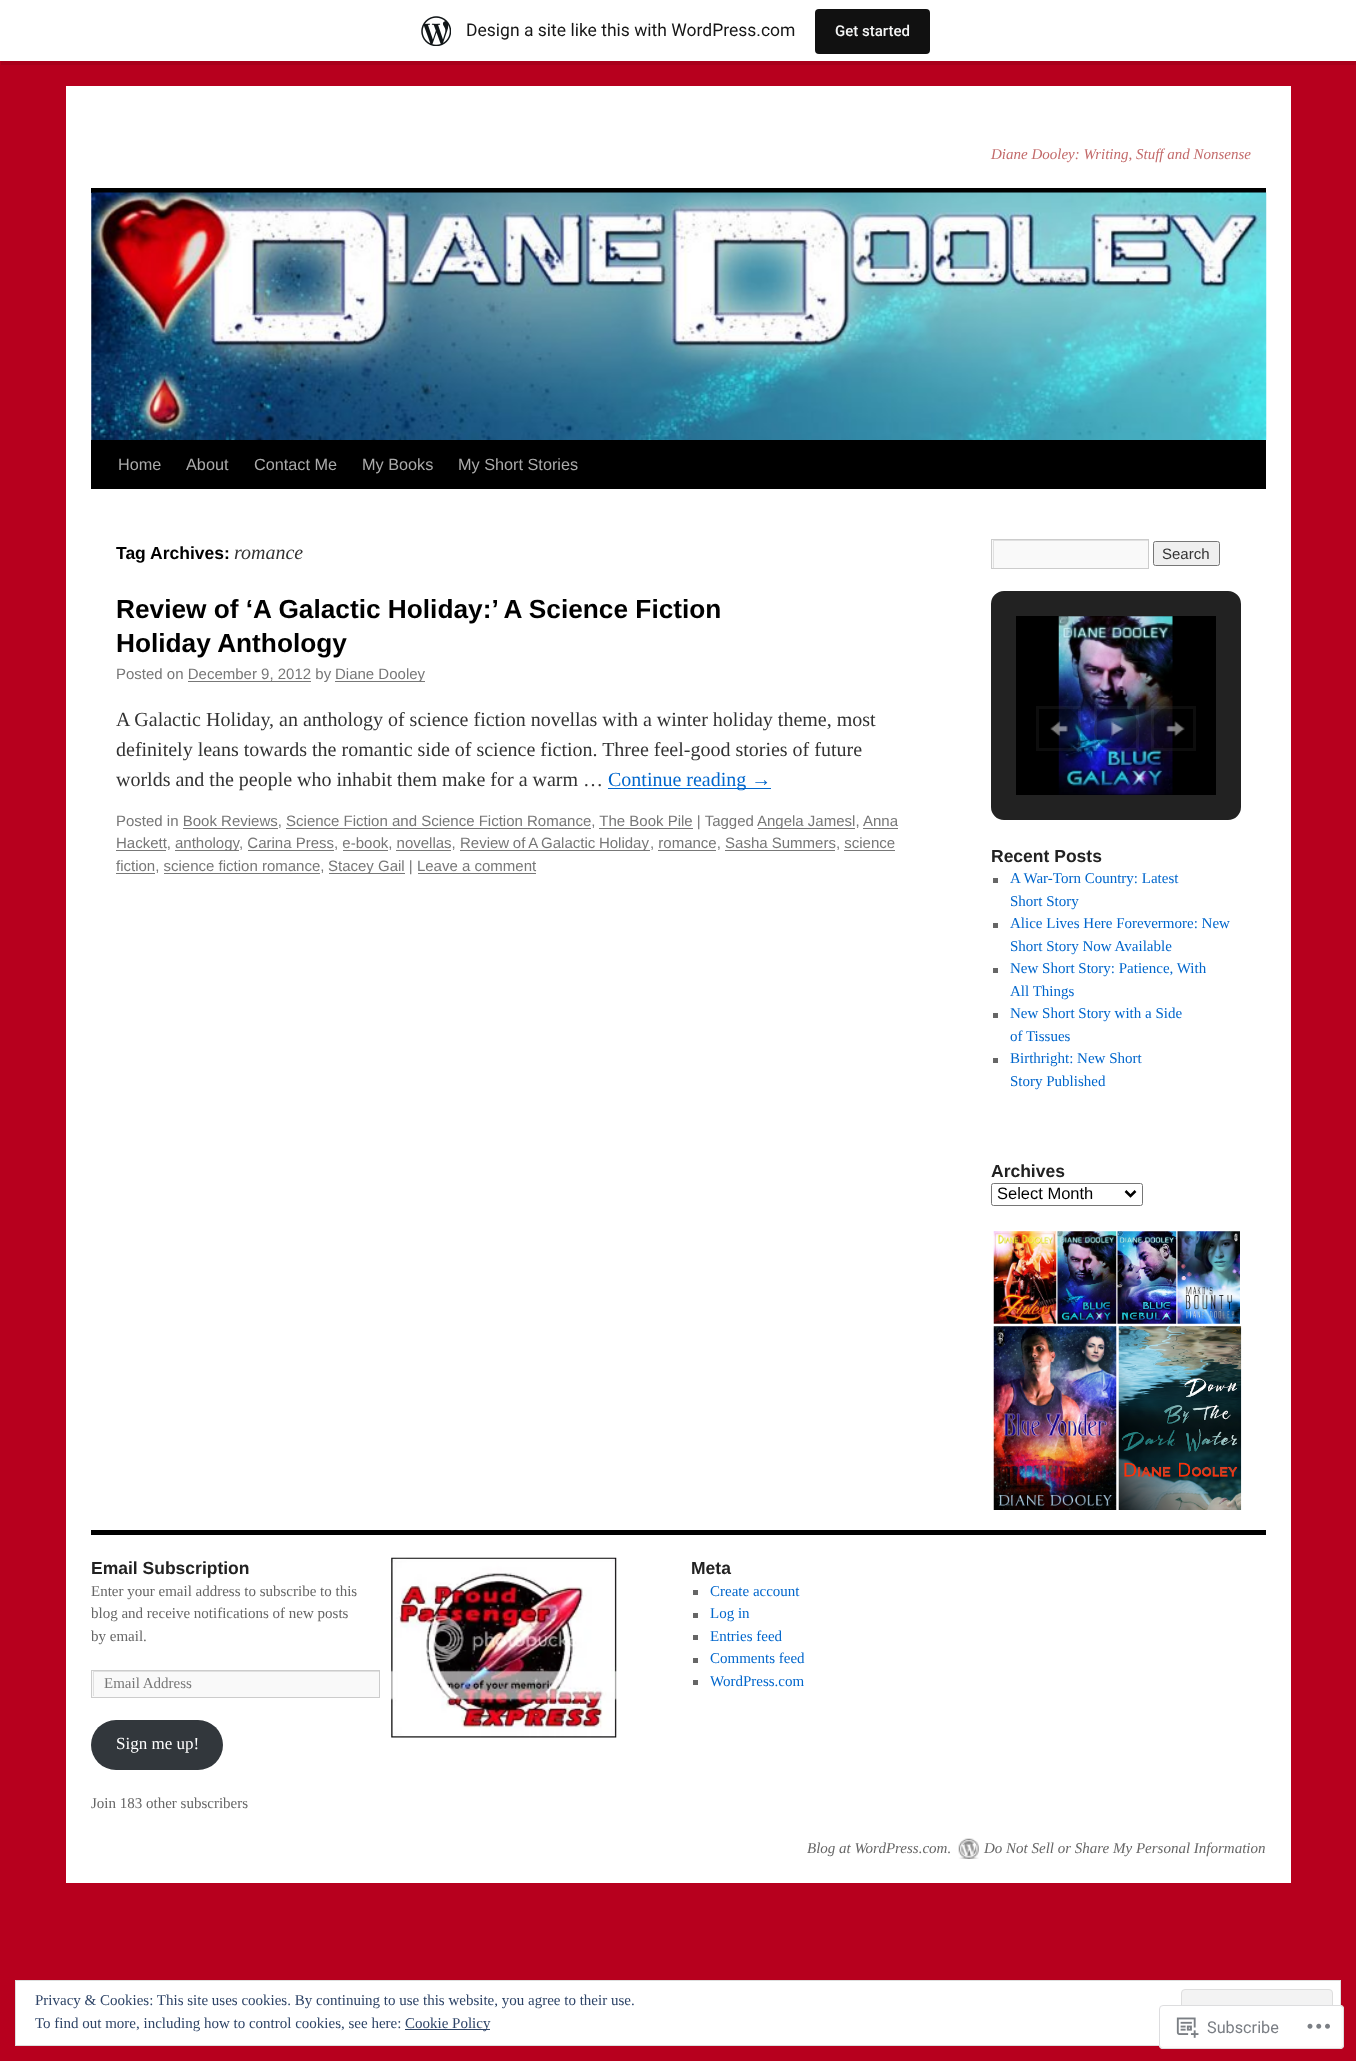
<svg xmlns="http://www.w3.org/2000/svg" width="1356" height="2061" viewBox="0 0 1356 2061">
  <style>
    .t1 { font: 17.5px Roboto; fill: #171717; }
    .t2 { font: 500 15px Roboto; fill: #f6f7f7; }
    .t3 { font: italic 15px Liberation Serif; fill: #c36b6b; }
    .t4 { font: 16.25px Liberation Sans; fill: #aaa; }
    .t5 { font: bold 17.5px Liberation Sans; fill: #000; }
    .t6 { font: italic 20px Liberation Serif; fill: #333; }
    .t7 { font: bold 26.25px Liberation Sans; fill: #000; }
    .t8 { font: 15px Liberation Sans; fill: #777; }
    .t9 { font: 20px Liberation Serif; fill: #333; }
    .t10 { font: 20px Liberation Serif; fill: #06c; }
    .t11 { font: 15px Liberation Sans; fill: #333; }
    .t12 { font: bold 17.5px Liberation Sans; fill: #222; }
    .t13 { font: 15px Liberation Serif; fill: #06c; }
    .t14 { font: 16.5px Liberation Sans; fill: #000; }
    .t15 { font: 15px Liberation Serif; fill: #666; }
    .t16 { font: 15px Liberation Serif; fill: #777; }
    .t17 { font: 17px Liberation Serif; fill: #fff; }
    .t18 { font: italic 15px Liberation Serif; fill: #666; }
    .t19 { font: 15px Liberation Serif; fill: #2e4467; }
    .t20 { font: 16.25px Roboto; fill: #7a7e84; }
  </style>
  <defs>
    <clipPath id="clip1"><rect x="993" y="540" width="155" height="28"/></clipPath>
    <clipPath id="clip2"><rect x="93" y="1671" width="286" height="25"/></clipPath>
  </defs>
  <rect width="100%" height="100%" fill="#b7001e"/>
  <path d="M1 61V65H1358V4H1356V61Z" fill="#00000014"/>
  <rect x="0" y="0" width="1356" height="61" fill="#fff"/>
  <image x="421" y="16" width="30" height="30" href="images/1.png"/>
  <text x="466" y="36" class="t1">Design a site like this with WordPress.com</text>
  <rect x="815" y="9" width="115" height="45" rx="4" fill="#111"/>
  <text x="835" y="36" class="t2">Get started</text>
  <rect x="66" y="86" width="1225" height="1797" fill="#fff"/>
  <text x="991" y="159" class="t3">Diane Dooley: Writing, Stuff and Nonsense</text>
  <rect x="91" y="188" width="1175" height="5" fill="#000"/>
  <rect x="91" y="440" width="1175" height="49" fill="#000"/>
  <image x="91" y="192" width="1176" height="248" href="images/2.png"/>
  <text x="118" y="470" class="t4">Home</text>
  <text x="186" y="470" class="t4">About</text>
  <text x="254" y="470" class="t4">Contact Me</text>
  <text x="362" y="470" class="t4">My Books</text>
  <text x="458" y="470" class="t4">My Short Stories</text>
  <text x="116" y="559" class="t5">Tag Archives:</text>
  <text x="234" y="559" class="t6">romance</text>
  <text x="116" y="618" class="t7">Review of ‘A Galactic Holiday:’ A Science Fiction</text>
  <text x="116" y="652" class="t7">Holiday Anthology</text>
  <text x="116" y="679" class="t8">Posted on December 9, 2012 by</text>
  <rect x="335" y="681" width="90" height="1" fill="#777"/>
  <text x="335" y="679" class="t8">Diane Dooley</text>
  <rect x="188" y="681" width="123" height="1" fill="#777"/>
  <text x="116" y="726" class="t9">A Galactic Holiday, an anthology of science fiction novellas with a winter holiday theme, most</text>
  <text x="116" y="756" class="t9">definitely leans towards the romantic side of science fiction. Three feel-good stories of future</text>
  <text x="116" y="786" class="t9">worlds and the people who inhabit them make for a warm …</text>
  <rect x="608" y="788" width="163" height="1" fill="#06c"/>
  <text x="608" y="786" class="t10">Continue reading →</text>
  <text x="116" y="826" class="t8">Posted in Book Reviews, Science Fiction and Science Fiction Romance, The Book Pile | Tagged</text>
  <rect x="183" y="828" width="95" height="1" fill="#777"/>
  <rect x="286" y="828" width="305" height="1" fill="#777"/>
  <rect x="599" y="828" width="94" height="1" fill="#777"/>
  <rect x="758" y="828" width="97" height="1" fill="#777"/>
  <text x="757" y="826" class="t8">Angela Jamesl,</text>
  <text x="863" y="826" class="t8">Anna</text>
  <rect x="863" y="828" width="35" height="1" fill="#777"/>
  <text x="116" y="848" class="t8">Hackett,</text>
  <rect x="116" y="850" width="50" height="1" fill="#777"/>
  <rect x="175" y="850" width="64" height="1" fill="#777"/>
  <text x="175" y="848" class="t8">anthology</text>
  <text x="239" y="848" class="t8">, Carina Press, e-book, novellas,</text>
  <rect x="248" y="850" width="86" height="1" fill="#777"/>
  <rect x="343" y="850" width="45" height="1" fill="#777"/>
  <rect x="396" y="850" width="55" height="1" fill="#777"/>
  <rect x="460" y="850" width="190" height="1" fill="#777"/>
  <text x="460" y="848" word-spacing="-0.5" class="t8">Review of A Galactic Holiday</text>
  <text x="650" y="848" class="t8">, romance, Sasha Summers, science</text>
  <rect x="658" y="850" width="58" height="1" fill="#777"/>
  <rect x="725" y="850" width="110" height="1" fill="#777"/>
  <rect x="844" y="850" width="51" height="1" fill="#777"/>
  <text x="116" y="871" class="t8">fiction, science fiction romance,</text>
  <rect x="116" y="873" width="39" height="1" fill="#777"/>
  <rect x="164" y="873" width="156" height="1" fill="#777"/>
  <rect x="329" y="873" width="76" height="1" fill="#777"/>
  <text x="328" y="871" class="t8">Stacey Gail | Leave a comment</text>
  <rect x="418" y="873" width="118" height="1" fill="#777"/>
  <rect x="992" y="540" width="156" height="28" fill="#f9f9f9"/>
  <g clip-path="url(#clip1)">
    <path d="M869 416H1271V691H869ZM994 541H1149V569H994Z" fill="#e0e0e0" fill-rule="evenodd"/>
  </g>
  <rect x="991.5" y="539.5" width="157" height="29" fill="none" stroke="#ccc"/>
  <rect x="1153.5" y="541.5" width="66" height="24" rx="2" fill="#efefef" stroke="#767676"/>
  <text x="1162" y="559" class="t11">Search</text>
  <rect x="1003.5" y="603.5" width="225" height="204" rx="0.5" fill="none" stroke="#222" stroke-width="25"/>
  <rect x="1016" y="616" width="200" height="179" fill="#000"/>
  <image x="1058" y="616" width="115" height="179" href="images/3.png"/>
  <circle cx="1058.5" cy="728.5" r="22.5" fill="#0000004d"/>
  <image x="1050" y="721" width="19" height="16" href="images/4.png"/>
  <rect x="1037.5" y="707.5" width="42" height="42" fill="none" stroke="#ffffff0d" stroke-width="3"/>
  <circle cx="1116.5" cy="728.5" r="22.5" fill="#0000004d"/>
  <image x="1111" y="721" width="14" height="17" href="images/5.png"/>
  <rect x="1095.5" y="707.5" width="42" height="42" fill="none" stroke="#ffffff0d" stroke-width="3"/>
  <circle cx="1173.5" cy="728.5" r="22.5" fill="#0000004d"/>
  <image x="1166" y="721" width="19" height="16" href="images/6.png"/>
  <rect x="1152.5" y="707.5" width="42" height="42" fill="none" stroke="#ffffff0d" stroke-width="3"/>
  <text x="991" y="862" class="t12">Recent Posts</text>
  <rect x="993" y="878" width="5" height="5" fill="#666"/>
  <text x="1010" y="883" class="t13">A War-Torn Country: Latest</text>
  <text x="1010" y="906" class="t13">Short Story</text>
  <rect x="993" y="923" width="5" height="5" fill="#666"/>
  <text x="1010" y="928" class="t13">Alice Lives Here Forevermore: New</text>
  <text x="1010" y="951" class="t13">Short Story Now Available</text>
  <rect x="993" y="968" width="5" height="5" fill="#666"/>
  <text x="1010" y="973" class="t13">New Short Story: Patience, With</text>
  <text x="1010" y="996" class="t13">All Things</text>
  <rect x="993" y="1013" width="5" height="5" fill="#666"/>
  <text x="1010" y="1018" class="t13">New Short Story with a Side</text>
  <text x="1010" y="1041" class="t13">of Tissues</text>
  <rect x="993" y="1058" width="5" height="5" fill="#666"/>
  <text x="1010" y="1063" class="t13">Birthright: New Short</text>
  <text x="1010" y="1086" class="t13">Story Published</text>
  <text x="991" y="1177" class="t12">Archives</text>
  <rect x="991.5" y="1183.5" width="151" height="22" rx="2" fill="none" stroke="#767676"/>
  <path d="M1125.5 1191L1130.5 1196L1135.5 1191" fill="none" stroke="#000" stroke-width="2.5"/>
  <text x="997" y="1199" class="t14">Select Month</text>
  <image x="993" y="1231" width="64" height="93" href="images/7.png"/>
  <image x="1057" y="1231" width="60" height="93" href="images/8.png"/>
  <image x="1117" y="1231" width="60" height="93" href="images/9.png"/>
  <image x="1177" y="1231" width="63" height="93" href="images/10.png"/>
  <image x="993" y="1326" width="124" height="184" href="images/11.png"/>
  <image x="1118" y="1326" width="124" height="184" href="images/12.png"/>
  <rect x="91" y="1530" width="1175" height="5" fill="#000"/>
  <text x="91" y="1574" class="t12">Email Subscription</text>
  <text x="91" y="1596" class="t15">Enter your email address to subscribe to this</text>
  <text x="91" y="1618" class="t15">blog and receive notifications of new posts</text>
  <text x="91" y="1641" class="t15">by email.</text>
  <rect x="92" y="1671" width="287" height="26" fill="#f9f9f9"/>
  <g clip-path="url(#clip2)">
    <path d="M-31 1548H502V1820H-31ZM94 1672H380V1698H94Z" fill="#e0e0e0" fill-rule="evenodd"/>
  </g>
  <rect x="91.5" y="1670.5" width="288" height="27" fill="none" stroke="#ccc"/>
  <text x="104" y="1688" class="t16">Email Address</text>
  <rect x="91" y="1720" width="132" height="50" rx="25" fill="#32373c"/>
  <text x="116" y="1749" class="t17">Sign me up!</text>
  <text x="91" y="1808" class="t15">Join 183 other subscribers</text>
  <image x="391" y="1557" width="226" height="181" href="images/13.png"/>
  <text x="691" y="1574" class="t12">Meta</text>
  <rect x="693" y="1590" width="5" height="5" fill="#666"/>
  <text x="710" y="1596" class="t13">Create account</text>
  <rect x="693" y="1613" width="5" height="5" fill="#666"/>
  <text x="710" y="1618" class="t13">Log in</text>
  <rect x="693" y="1635" width="5" height="5" fill="#666"/>
  <text x="710" y="1641" class="t13">Entries feed</text>
  <rect x="693" y="1658" width="5" height="5" fill="#666"/>
  <text x="710" y="1663" class="t13">Comments feed</text>
  <rect x="693" y="1680" width="5" height="5" fill="#666"/>
  <text x="710" y="1686" class="t13">WordPress.com</text>
  <text x="807" y="1853" class="t18">Blog at WordPress.com.</text>
  <image x="958" y="1838" width="21" height="21" href="images/14.png"/>
  <text x="984" y="1853" class="t18">Do Not Sell or Share My Personal Information</text>
  <rect x="15.5" y="1980.5" width="1325" height="65" fill="#fff" stroke="#dedede"/>
  <text x="35" y="2005" class="t19">Privacy &amp; Cookies: This site uses cookies. By continuing to use this website, you agree to their use.</text>
  <rect x="1181.5" y="1989.5" width="151" height="48" rx="3.5" fill="#f3f3f3" stroke="#dedede"/>
  <text x="35" y="2028" class="t19">To find out more, including how to control cookies, see here:</text>
  <rect x="405" y="2029" width="85" height="1" fill="#2e4467"/>
  <text x="405" y="2028" class="t19">Cookie Policy</text>
  <rect x="1159" y="2005" width="185" height="44" rx="4" fill="#fffffffa"/>
  <rect x="1159.5" y="2005.5" width="184" height="43" rx="3.5" fill="none" stroke="#dcdcdefa"/>
  <image x="1176" y="2017" width="23" height="21" href="images/15.png"/>
  <text x="1207" y="2033" class="t20">Subscribe</text>
  <image x="1307" y="2023" width="23" height="6" href="images/16.png"/>
</svg>
